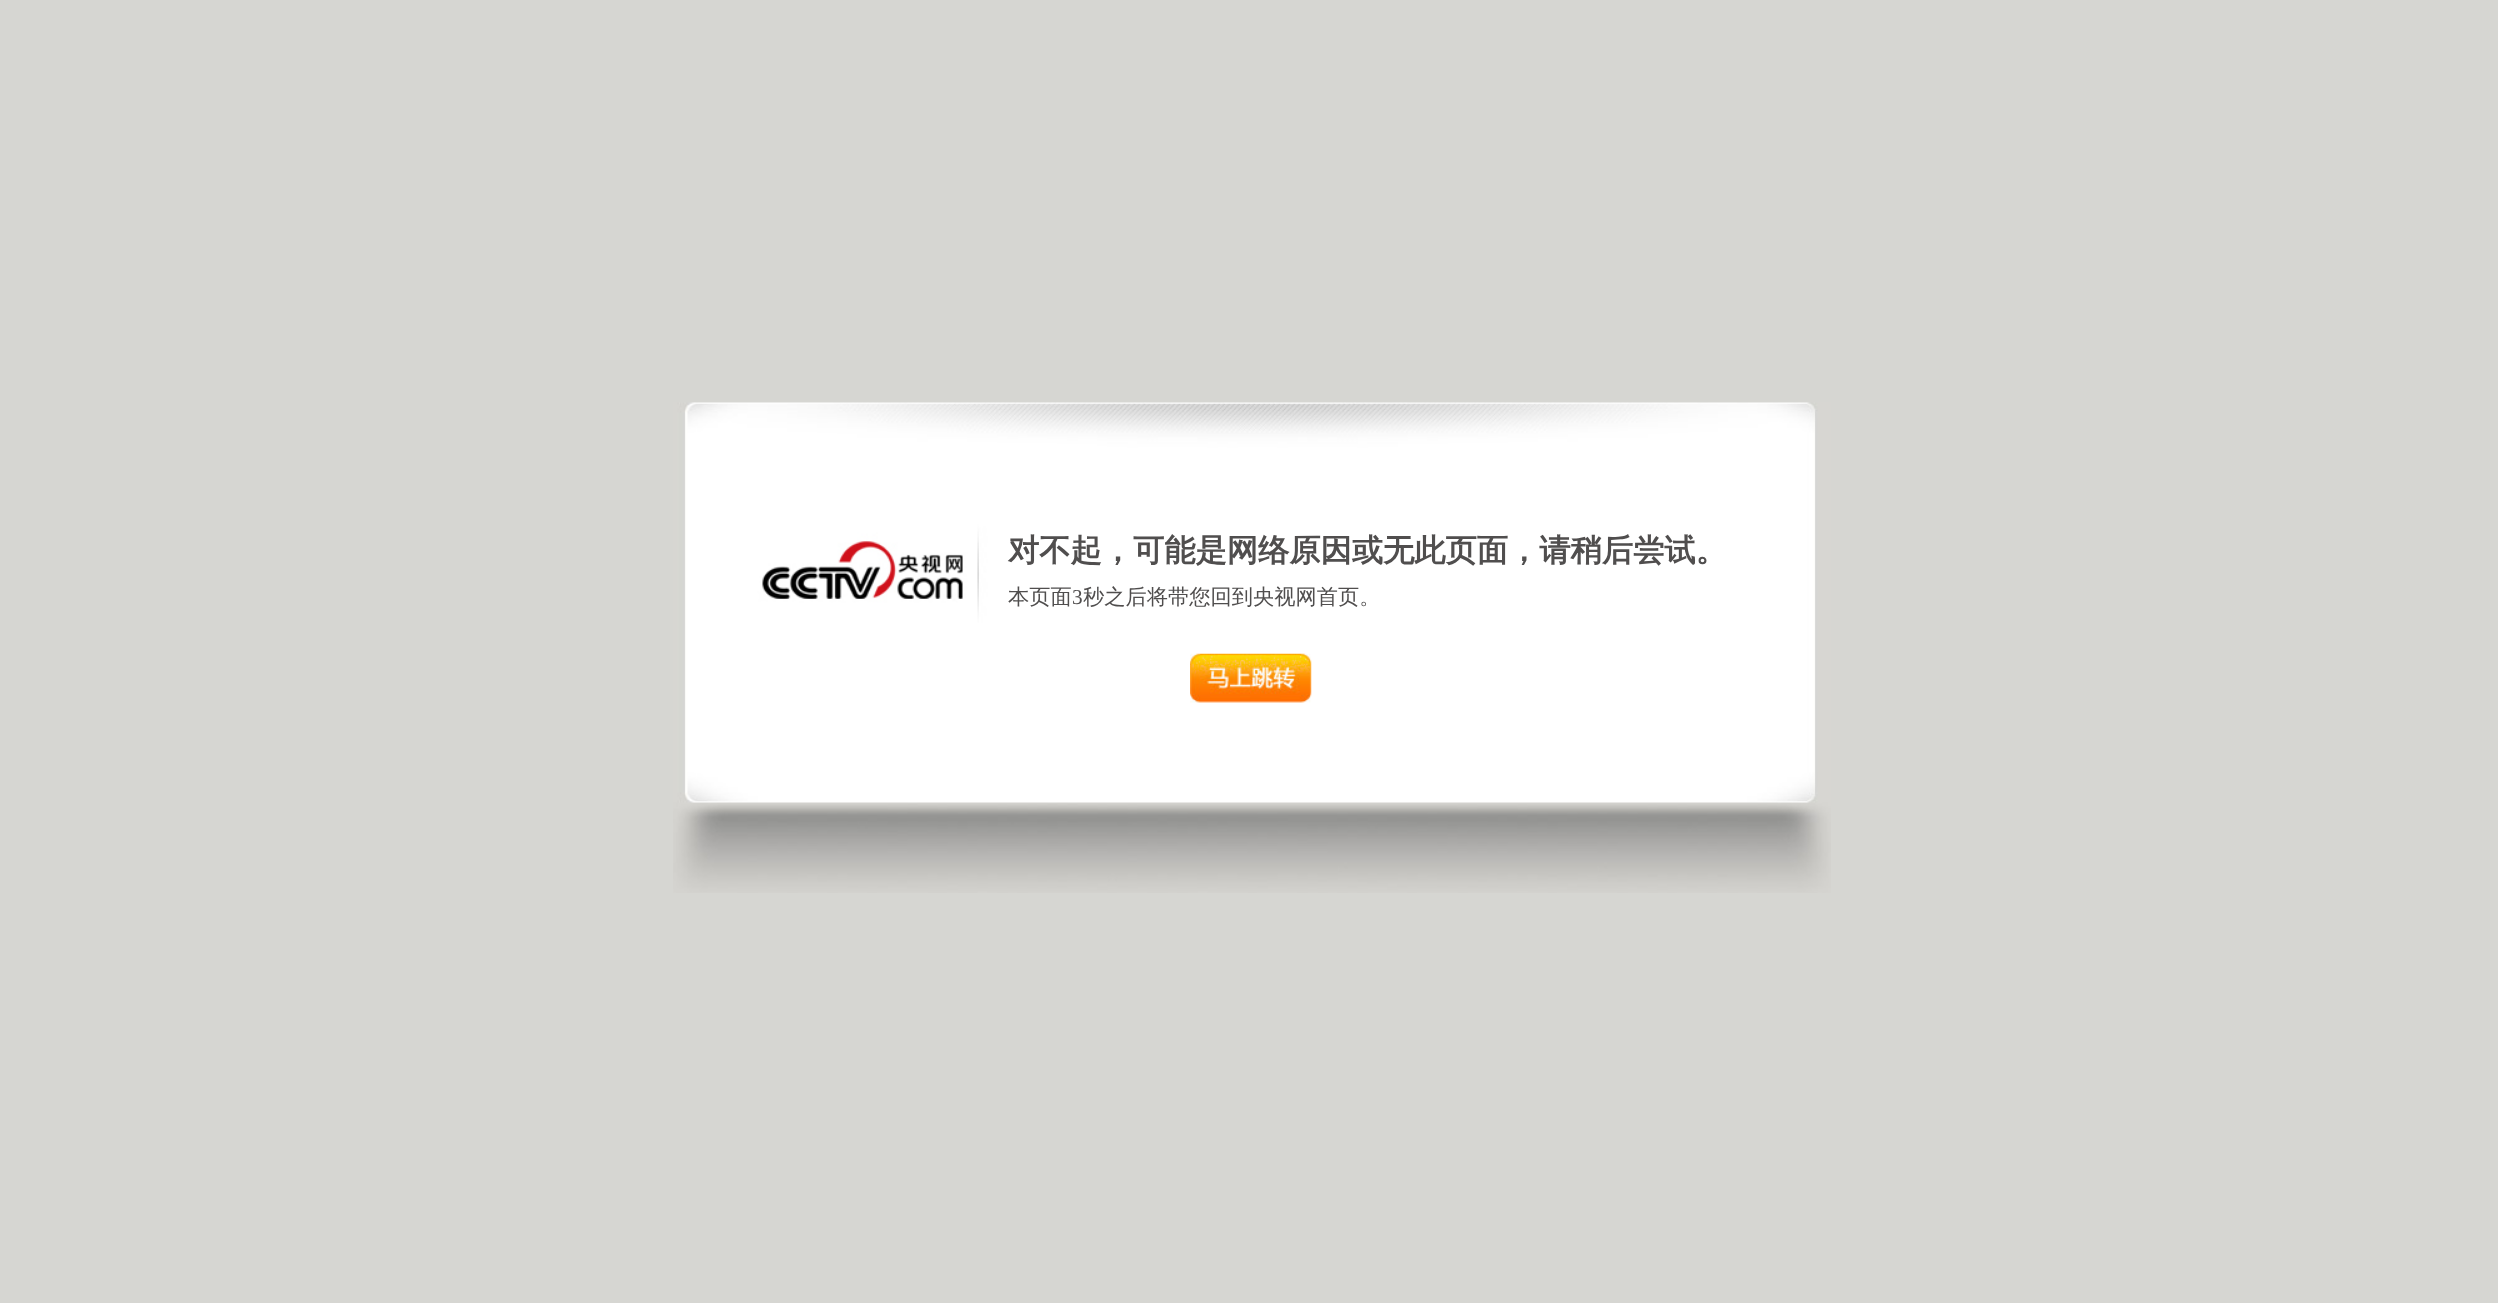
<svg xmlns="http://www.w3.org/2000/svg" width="2498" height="1303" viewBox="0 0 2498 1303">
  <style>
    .t1 { font: bold 31.25px WenQuanYi Zen Hei; fill: #504e4e; }
    .t2 { font: 500 21.25px WenQuanYi Zen Hei; fill: #504e4e; }
    .t3 { font: 21.25px Liberation Serif; fill: #504e4e; }
  </style>
  <rect width="100%" height="100%" fill="#d6d6d2"/>
  <image x="673" y="402" width="1158" height="491" href="images/1.png"/>
  <text x="1008" y="561" class="t1">对不起，可能是网络原因或无此页面，请稍后尝试。</text>
  <text x="1008" y="604" class="t2">本页面</text>
  <text x="1072" y="604" class="t3">3</text>
  <text x="1083" y="604" class="t2">秒之后将带您回到央视网首页。</text>
  <image x="1190" y="653" width="122" height="50" href="images/2.png"/>
</svg>
